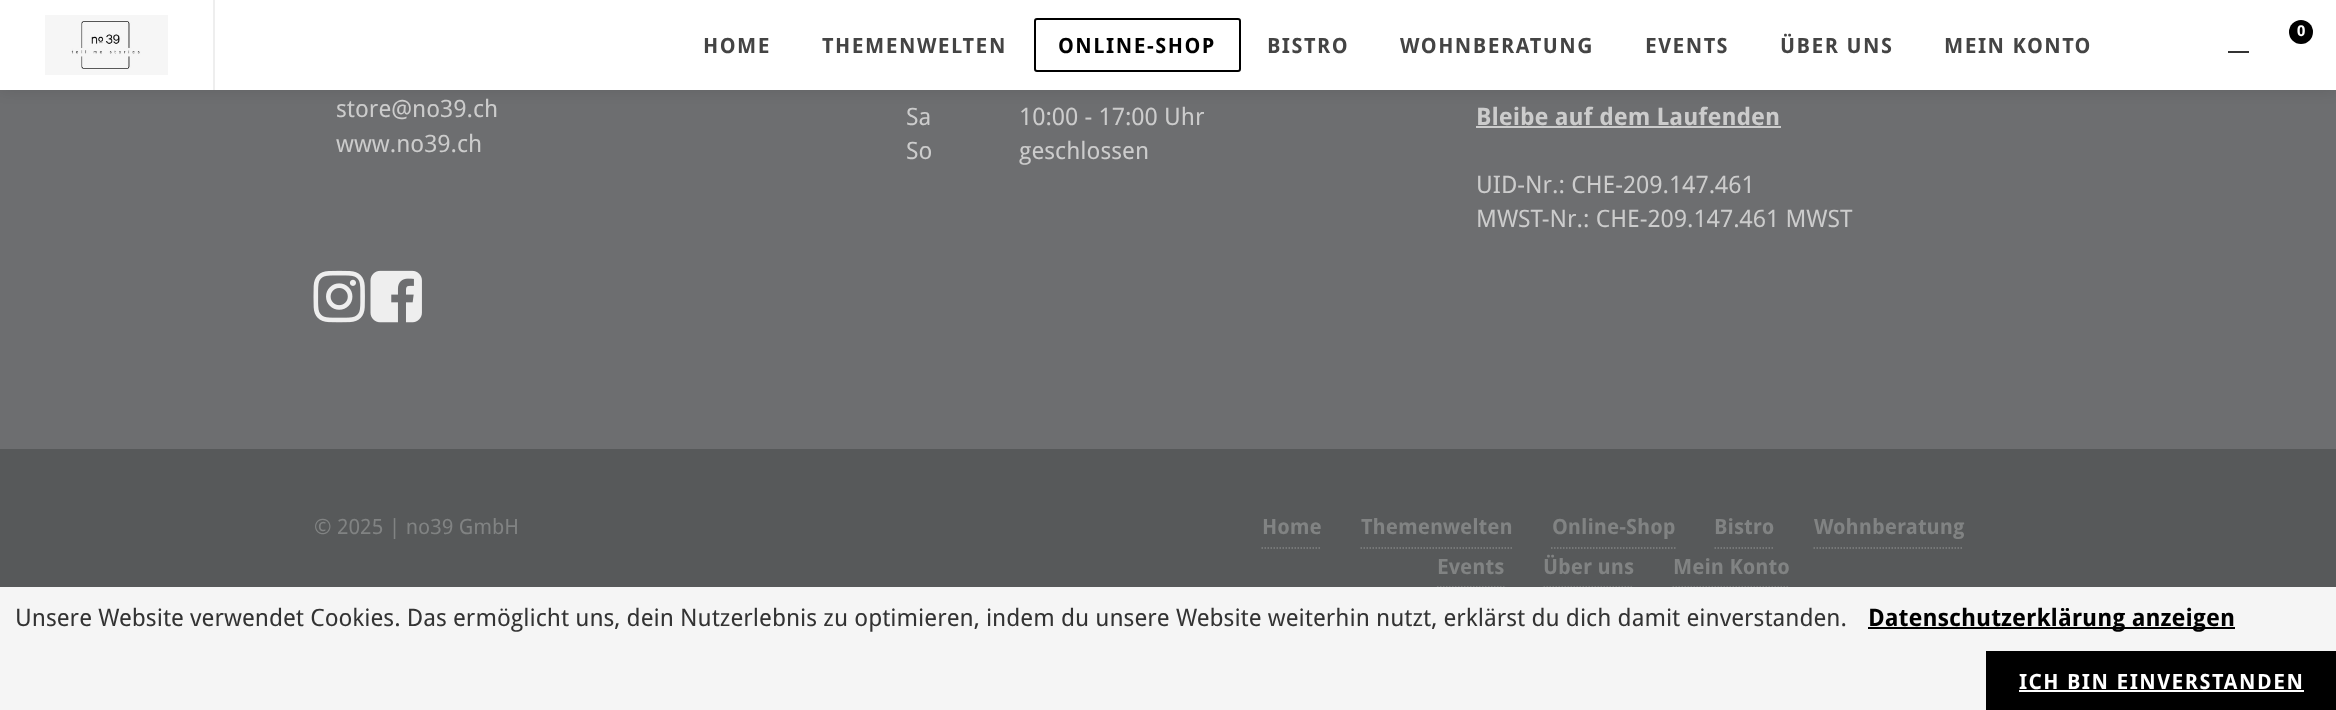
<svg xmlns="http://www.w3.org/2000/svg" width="2336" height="710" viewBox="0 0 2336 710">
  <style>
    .t1 { font: bold 15px Droid Sans; fill: #fff; }
    .t2 { font: bold 21px Droid Sans; letter-spacing: 1.5px; fill: #444; }
    .t3 { font: bold 21px Droid Sans; letter-spacing: 1.5px; fill: #000; }
    .t4 { font: 24px Droid Sans; fill: #ccc; }
    .t5 { font: bold 24px Droid Sans; fill: #ccc; }
    .t6 { font: 21px Droid Sans; fill: #818383; }
    .t7 { font: bold 21px Droid Sans; fill: #818383; }
    .t8 { font: 24px Droid Sans; fill: #333; }
    .t9 { font: bold 24px Droid Sans; fill: #000; }
    .t10 { font: bold 21px Droid Sans; letter-spacing: 1.5px; fill: #fff; }
  </style>
  <rect width="100%" height="100%" fill="#6d6e70"/>
  <rect x="0" y="0" width="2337" height="90" fill="#0000001a" filter="blur(7.5px)"/>
  <rect x="0" y="0" width="2336" height="90" fill="#fff"/>
  <rect x="213" y="0" width="2" height="90" fill="#eee"/>
  <image x="45" y="15" width="123" height="60" href="images/1.png"/>
  <circle cx="2301" cy="32" r="12" fill="#000"/>
  <text x="2297" y="36" class="t1">0</text>
  <text x="703" y="53" class="t2">HOME</text>
  <text x="822" y="53" class="t2">THEMENWELTEN</text>
  <rect x="1035" y="19" width="205" height="52" rx="2" fill="none" stroke="#000" stroke-width="2"/>
  <text x="1058" y="53" class="t3">ONLINE-SHOP</text>
  <text x="1267" y="53" class="t2">BISTRO</text>
  <text x="1400" y="53" class="t2">WOHNBERATUNG</text>
  <text x="1645" y="53" class="t2">EVENTS</text>
  <text x="1780" y="53" class="t2">ÜBER UNS</text>
  <text x="1944" y="53" class="t2">MEIN KONTO</text>
  <rect x="2228" y="51" width="21" height="2" fill="#333"/>
  <text x="336" y="117" class="t4">store@no39.ch</text>
  <text x="336" y="152" class="t4">www.no39.ch</text>
  <text x="906" y="125" class="t4">Sa</text>
  <text x="1019" y="125" class="t4">10:00 - 17:00 Uhr</text>
  <text x="906" y="159" class="t4">So</text>
  <text x="1019" y="159" class="t4">geschlossen</text>
  <text x="1476" y="125" class="t5">Bleibe auf dem Laufenden</text>
  <rect x="1476" y="126" width="305" height="2" fill="#ccc"/>
  <text x="1476" y="193" class="t4">UID-Nr.: CHE-209.147.461</text>
  <text x="1476" y="227" class="t4">MWST-Nr.: CHE-209.147.461 MWST</text>
  <image x="313" y="270" width="52" height="53" href="images/2.png"/>
  <image x="370" y="270" width="52" height="53" href="images/3.png"/>
  <rect x="0" y="449" width="2336" height="138" fill="#57595a"/>
  <text x="314" y="534" class="t6">© 2025 | no39 GmbH</text>
  <path d="M1261.5 548H1321.5" fill="none" stroke="#818383" stroke-width="1.5" stroke-dasharray="1.5 1.5"/>
  <text x="1262" y="534" class="t7">Home</text>
  <path d="M1360.5 548H1512" fill="none" stroke="#818383" stroke-width="1.5" stroke-dasharray="1.5 1.5"/>
  <text x="1361" y="534" class="t7">Themenwelten</text>
  <path d="M1551 548H1675.5" fill="none" stroke="#818383" stroke-width="1.5" stroke-dasharray="1.5 1.5"/>
  <text x="1552" y="534" class="t7">Online-Shop</text>
  <path d="M1714.5 548H1774.5" fill="none" stroke="#818383" stroke-width="1.5" stroke-dasharray="1.5 1.5"/>
  <text x="1714" y="534" class="t7">Bistro</text>
  <path d="M1813.5 548H1963.5" fill="none" stroke="#818383" stroke-width="1.5" stroke-dasharray="1.5 1.5"/>
  <text x="1814" y="534" class="t7">Wohnberatung</text>
  <path d="M1437 587H1504.5" fill="none" stroke="#818383" stroke-width="1.5" stroke-dasharray="1.5 1.5"/>
  <text x="1437" y="574" class="t7">Events</text>
  <path d="M1543.5 587H1633.5" fill="none" stroke="#818383" stroke-width="1.5" stroke-dasharray="1.5 1.5"/>
  <text x="1543" y="574" class="t7">Über uns</text>
  <path d="M1672.5 587H1789.5" fill="none" stroke="#818383" stroke-width="1.5" stroke-dasharray="1.5 1.5"/>
  <text x="1673" y="574" class="t7">Mein Konto</text>
  <rect x="0" y="587" width="2336" height="123" fill="#f5f5f5"/>
  <text x="15" y="626" class="t8">Unsere Website verwendet Cookies. Das ermöglicht uns, dein Nutzerlebnis zu optimieren, indem du unsere Website weiterhin nutzt, erklärst du dich damit einverstanden.</text>
  <rect x="1868" y="627" width="367" height="2" fill="#000"/>
  <text x="1868" y="626" class="t9">Datenschutzerklärung anzeigen</text>
  <rect x="1986" y="651" width="350" height="59" fill="#000"/>
  <text x="2019" y="689" class="t10">ICH BIN EINVERSTANDEN</text>
  <rect x="2019" y="690" width="285" height="2" fill="#fff"/>
</svg>
